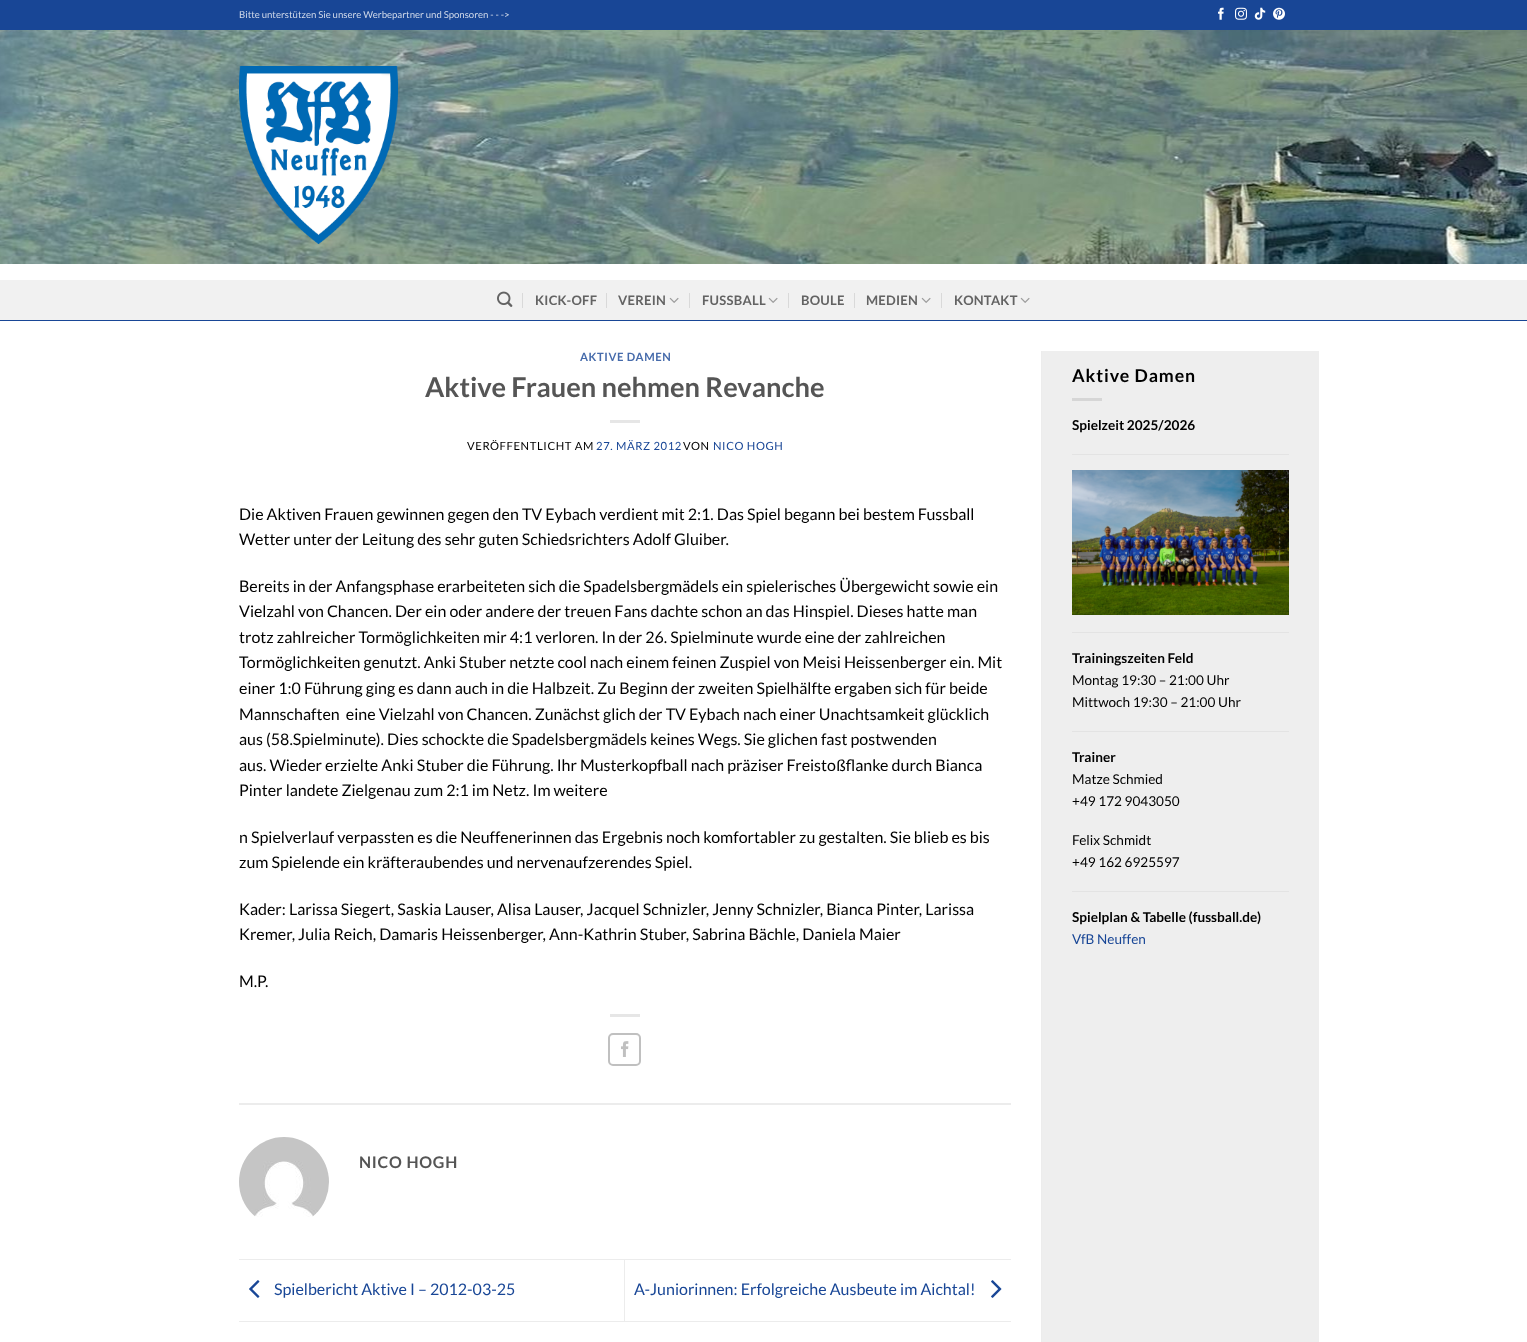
<svg xmlns="http://www.w3.org/2000/svg" width="1527" height="1342" viewBox="0 0 1527 1342">
  <style>
    .t1 { font: 9.6px Lato; fill: #d1daea; }
    .t2 { font: bold 13px Lato; letter-spacing: 0.25px; fill: #636363; }
    .t3 { font: bold 11.25px Lato; letter-spacing: 0.6px; fill: #466bab; }
    .t4 { font: bold 27.25px Lato; fill: #555; }
    .t5 { font: 11.25px Lato; letter-spacing: 0.6px; fill: #000; }
    .t6 { font: 11.25px Lato; letter-spacing: 0.6px; fill: #184696; }
    .t7 { font: 16px Lato; fill: #000; }
    .t8 { font: bold 16px Lato; letter-spacing: 0.75px; fill: #555; }
    .t9 { font: 16px Lato; fill: #184696; }
    .t10 { font: bold 17.75px Lato; letter-spacing: 0.9px; fill: #000; }
    .t11 { font: bold 13.6px Lato; fill: #000; }
    .t12 { font: 13.6px Lato; fill: #000; }
    .t13 { font: 13.6px Lato; fill: #184696; }
  </style>
  <rect width="100%" height="100%" fill="#fff"/>
  <rect x="0" y="0" width="1527" height="30" fill="#184696"/>
  <text x="239" y="18" class="t1">Bitte unterstützen Sie unsere Werbepartner und Sponsoren - - -&gt;</text>
  <image x="1218" y="7" width="6" height="13" href="images/1.png"/>
  <image x="1235" y="7" width="12" height="13" href="images/2.png"/>
  <image x="1254" y="7" width="12" height="13" href="images/3.png"/>
  <image x="1273" y="7" width="12" height="13" href="images/4.png"/>
  <image x="0" y="30" width="1527" height="234" href="images/5.png"/>
  <image x="239" y="66" width="159" height="178" href="images/6.png"/>
  <rect x="0" y="280" width="1527" height="40" fill="#f1f1f1"/>
  <rect x="0" y="320" width="1527" height="1" fill="#184696"/>
  <image x="497" y="291" width="16" height="16" href="images/7.png"/>
  <rect x="522" y="293" width="1" height="15" fill="#d9d9d9"/>
  <text x="535" y="305" class="t2">KICK-OFF</text>
  <rect x="606" y="293" width="1" height="15" fill="#d9d9d9"/>
  <text x="618" y="305" class="t2">VEREIN</text>
  <image x="669" y="297" width="10" height="6" href="images/8.png"/>
  <rect x="689" y="293" width="1" height="15" fill="#d9d9d9"/>
  <text x="702" y="305" class="t2">FUSSBALL</text>
  <image x="768" y="297" width="10" height="6" href="images/8.png"/>
  <rect x="788" y="293" width="1" height="15" fill="#d9d9d9"/>
  <text x="801" y="305" class="t2">BOULE</text>
  <rect x="854" y="293" width="1" height="15" fill="#d9d9d9"/>
  <text x="866" y="305" class="t2">MEDIEN</text>
  <image x="921" y="297" width="10" height="6" href="images/8.png"/>
  <rect x="941" y="293" width="1" height="15" fill="#d9d9d9"/>
  <text x="954" y="305" class="t2">KONTAKT</text>
  <image x="1020" y="297" width="10" height="6" href="images/8.png"/>
  <text x="580" y="361" class="t3">AKTIVE DAMEN</text>
  <text x="425" y="397" class="t4">Aktive Frauen nehmen Revanche</text>
  <rect x="610" y="420" width="30" height="3" fill="#e6e6e6"/>
  <text x="467" y="450" class="t5">VERÖFFENTLICHT AM</text>
  <text x="596" y="450" class="t6">27. MÄRZ 2012</text>
  <text x="683" y="450" class="t5">VON</text>
  <text x="713" y="450" class="t6">NICO HOGH</text>
  <text x="239" y="520" class="t7">Die Aktiven Frauen gewinnen gegen den TV Eybach verdient mit 2:1. Das Spiel begann bei bestem Fussball</text>
  <text x="239" y="545" class="t7">Wetter unter der Leitung des sehr guten Schiedsrichters Adolf Gluiber.</text>
  <text x="239" y="592" class="t7">Bereits in der Anfangsphase erarbeiteten sich die Spadelsbergmädels ein spielerisches Übergewicht sowie ein</text>
  <text x="239" y="617" class="t7">Vielzahl von Chancen. Der ein oder andere der treuen Fans dachte schon an das Hinspiel. Dieses hatte man</text>
  <text x="239" y="643" class="t7">trotz zahlreicher Tormöglichkeiten mir 4:1 verloren. In der 26. Spielminute wurde eine der zahlreichen</text>
  <text x="239" y="668" class="t7">Tormöglichkeiten genutzt. Anki Stuber netzte cool nach einem feinen Zuspiel von Meisi Heissenberger ein. Mit</text>
  <text x="239" y="694" class="t7">einer 1:0 Führung ging es dann auch in die Halbzeit. Zu Beginn der zweiten Spielhälfte ergaben sich für beide</text>
  <text x="239" y="720" class="t7" xml:space="preserve">Mannschaften  eine Vielzahl von Chancen. Zunächst glich der TV Eybach nach einer Unachtsamkeit glücklich</text>
  <text x="239" y="745" class="t7">aus (58.Spielminute). Dies schockte die Spadelsbergmädels keines Wegs. Sie glichen fast postwenden</text>
  <text x="239" y="771" class="t7">aus. Wieder erzielte Anki Stuber die Führung. Ihr Musterkopfball nach präziser Freistoßflanke durch Bianca</text>
  <text x="239" y="796" class="t7">Pinter landete Zielgenau zum 2:1 im Netz. Im weitere</text>
  <text x="239" y="843" class="t7">n Spielverlauf verpassten es die Neuffenerinnen das Ergebnis noch komfortabler zu gestalten. Sie blieb es bis</text>
  <text x="239" y="868" class="t7">zum Spielende ein kräfteraubendes und nervenaufzerendes Spiel.</text>
  <text x="239" y="915" class="t7">Kader: Larissa Siegert, Saskia Lauser, Alisa Lauser, Jacquel Schnizler, Jenny Schnizler, Bianca Pinter, Larissa</text>
  <text x="239" y="940" class="t7">Kremer, Julia Reich, Damaris Heissenberger, Ann-Kathrin Stuber, Sabrina Bächle, Daniela Maier</text>
  <text x="239" y="987" class="t7">M.P.</text>
  <rect x="610" y="1014" width="30" height="3" fill="#e6e6e6"/>
  <rect x="609" y="1034" width="31" height="31" rx="4" fill="none" stroke="#c0c0c0" stroke-width="2"/>
  <image x="621" y="1041" width="8" height="16" href="images/9.png"/>
  <rect x="239" y="1103" width="772" height="2" fill="#ececec"/>
  <image x="239" y="1137" width="90" height="80" href="images/10.png"/>
  <text x="359" y="1168" class="t8">NICO HOGH</text>
  <rect x="239" y="1259" width="772" height="1" fill="#ececec"/>
  <rect x="239" y="1321" width="772" height="1" fill="#ececec"/>
  <image x="249" y="1280" width="11" height="18" href="images/11.png"/>
  <text x="274" y="1295" class="t9">Spielbericht Aktive I – 2012-03-25</text>
  <rect x="624" y="1260" width="1" height="61" fill="#ececec"/>
  <text x="634" y="1295" class="t9">A-Juniorinnen: Erfolgreiche Ausbeute im Aichtal!</text>
  <image x="991" y="1280" width="11" height="18" href="images/12.png"/>
  <rect x="1042" y="351" width="277" height="991" fill="#eee"/>
  <rect x="1041" y="351" width="1" height="991" fill="#ececec"/>
  <text x="1072" y="382" class="t10">Aktive Damen</text>
  <rect x="1072" y="398" width="30" height="3" fill="#d6d6d6"/>
  <text x="1072" y="430" class="t11">Spielzeit 2025/2026</text>
  <rect x="1072" y="454" width="217" height="1" fill="#e3e3e3"/>
  <image x="1072" y="470" width="217" height="145" href="images/13.png"/>
  <rect x="1072" y="632" width="217" height="1" fill="#e3e3e3"/>
  <text x="1072" y="663" class="t11">Trainingszeiten Feld</text>
  <text x="1072" y="685" class="t12">Montag 19:30 – 21:00 Uhr</text>
  <text x="1072" y="707" class="t12">Mittwoch 19:30 – 21:00 Uhr</text>
  <rect x="1072" y="731" width="217" height="1" fill="#e3e3e3"/>
  <text x="1072" y="762" class="t11">Trainer</text>
  <text x="1072" y="784" class="t12">Matze Schmied</text>
  <text x="1072" y="806" class="t12">+49 172 9043050</text>
  <text x="1072" y="845" class="t12">Felix Schmidt</text>
  <text x="1072" y="867" class="t12">+49 162 6925597</text>
  <rect x="1072" y="891" width="217" height="1" fill="#e3e3e3"/>
  <text x="1072" y="922" class="t11">Spielplan &amp; Tabelle (fussball.de)</text>
  <text x="1072" y="944" class="t13">VfB Neuffen</text>
</svg>
